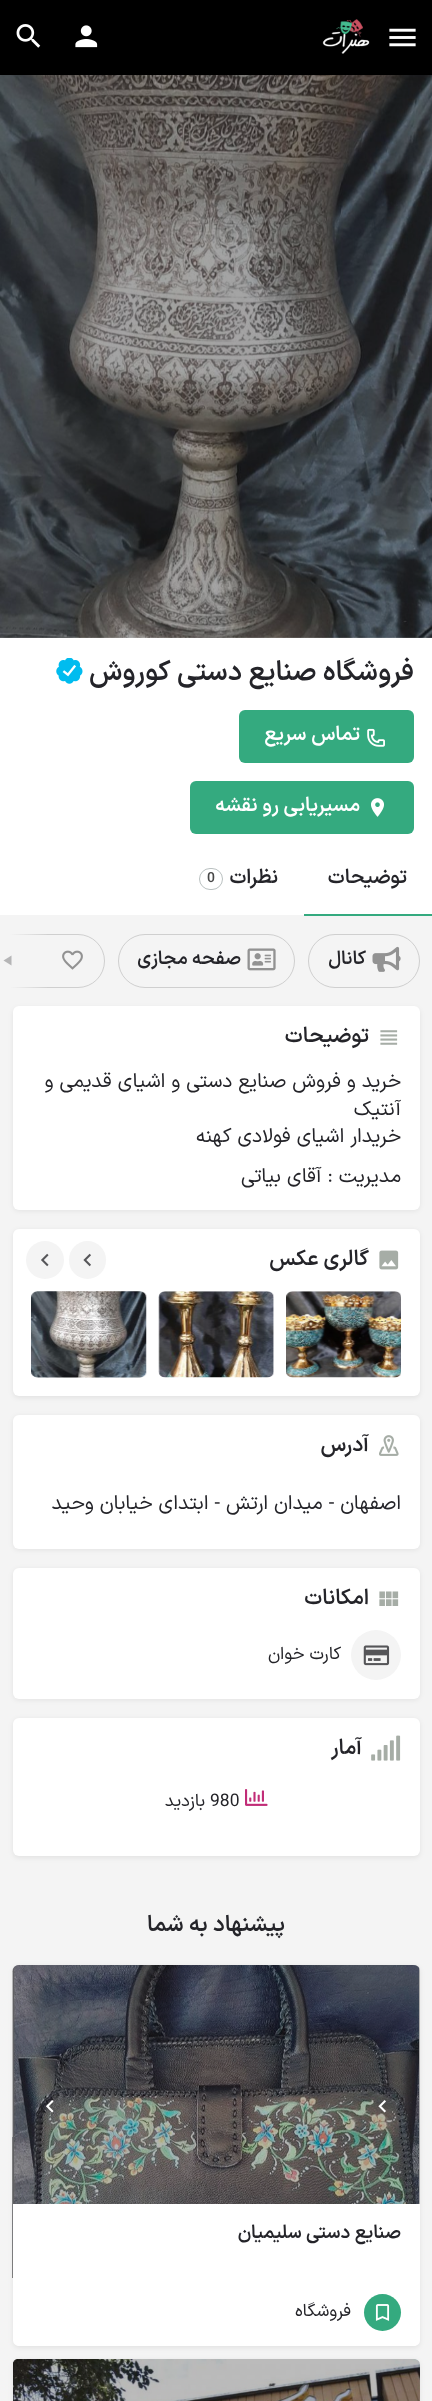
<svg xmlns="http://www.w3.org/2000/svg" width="432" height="2401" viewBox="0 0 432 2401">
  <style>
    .t1 { font: 600 27.5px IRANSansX; direction: rtl; fill: #242429; }
    .t2 { font: 600 20px IRANSansX; direction: rtl; fill: #fff; }
    .t3 { font: 600 20px IRANSansX; direction: rtl; fill: #242429; }
    .t4 { font: 600 14px IRANSansX; fill: #484848; }
    .t5 { font: 600 18.75px IRANSansX; direction: rtl; fill: #242429; }
    .t6 { font: 600 21.25px IRANSansX; direction: rtl; fill: #242429; }
    .t7 { font: 20px IRANSansX; direction: rtl; fill: #242429; }
    .t8 { font: 17.5px IRANSansX; direction: rtl; fill: #242429; }
    .t9 { font: 17.5px IRANSansX; fill: #242429; }
    .t10 { font: 600 22.5px IRANSansX; direction: rtl; fill: #242429; }
  </style>
  <defs>
    <linearGradient id="g1" gradientUnits="userSpaceOnUse" x1="49" y1="961" x2="0" y2="961"><stop offset="0" stop-color="#f4f4f4" stop-opacity="0"/><stop offset="0.8" stop-color="#f4f4f4"/></linearGradient>
  </defs>
  <rect width="100%" height="100%" fill="#f4f4f4"/>
  <rect x="0" y="0" width="432" height="75" fill="#000"/>
  <image x="389" y="28" width="27" height="19" href="images/1.png"/>
  <image x="322" y="19" width="48" height="35" href="images/2.png"/>
  <image x="75" y="25" width="23" height="23" href="images/3.png"/>
  <image x="16" y="24" width="25" height="24" href="images/4.png"/>
  <image x="0" y="75" width="432" height="563" href="images/5.png"/>
  <rect x="0" y="638" width="432" height="277" fill="#fff"/>
  <text x="414" y="680" class="t1">فروشگاه صنایع دستی کوروش</text>
  <image x="56" y="658" width="27" height="26" href="images/6.png"/>
  <rect x="239" y="710" width="175" height="53" rx="6" fill="#34aa7f"/>
  <image x="367" y="728" width="18" height="19" href="images/7.png"/>
  <text x="360" y="740" class="t2">تماس سریع</text>
  <rect x="190" y="781" width="224" height="53" rx="6" fill="#34aa7f"/>
  <image x="371" y="798" width="13" height="19" href="images/8.png"/>
  <text x="360" y="811" class="t2">مسیریابی رو نقشه</text>
  <text x="407" y="883" class="t3">توضیحات</text>
  <rect x="304" y="914" width="128" height="2" fill="#34aa7f"/>
  <text x="278" y="883" class="t3">نظرات</text>
  <rect x="199.5" y="868.5" width="23" height="21" rx="10.5" fill="none" stroke="#bac1c1"/>
  <text x="207" y="882" class="t4">0</text>
  <rect x="-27.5" y="934.5" width="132" height="53" rx="26.5" fill="none" stroke="#cfcfcf"/>
  <image x="62" y="950" width="21" height="20" href="images/9.png"/>
  <rect x="308.5" y="934.5" width="111" height="53" rx="26.5" fill="none" stroke="#cfcfcf"/>
  <image x="372" y="946" width="29" height="26" href="images/10.png"/>
  <text x="366" y="964" class="t5">کانال</text>
  <rect x="118.5" y="934.5" width="176" height="53" rx="26.5" fill="none" stroke="#cfcfcf"/>
  <image x="247" y="948" width="29" height="23" href="images/11.png"/>
  <text x="241" y="964" class="t5">صفحه مجازی</text>
  <rect x="0" y="934" width="47" height="54" fill="url(#g1)"/>
  <path d="M11.5 965.5L3.5 960.5L11.5 955.5Z" fill="#2424294d"/>
  <rect x="13" y="1008" width="407" height="203" rx="6" fill="#00000012" filter="blur(2.5px)"/>
  <rect x="13" y="1006" width="407" height="204" rx="6" fill="#fff"/>
  <image x="380" y="1030" width="18" height="15" href="images/12.png"/>
  <text x="369" y="1042" class="t6">توضیحات</text>
  <text x="401" y="1087" class="t7">خرید و فروش صنایع دستی و اشیای قدیمی و</text>
  <text x="401" y="1115" class="t7">آنتیک</text>
  <text x="401" y="1142" class="t7">خریدار اشیای فولادی کهنه</text>
  <text x="401" y="1182" class="t7">مدیریت : آقای بیاتی</text>
  <rect x="13" y="1230" width="407" height="168" rx="6" fill="#00000012" filter="blur(2.5px)"/>
  <rect x="13" y="1229" width="407" height="167" rx="6" fill="#fff"/>
  <image x="379" y="1250" width="20" height="20" href="images/13.png"/>
  <text x="369" y="1265" class="t6">گالری عکس</text>
  <rect x="69" y="1241" width="37" height="38" rx="18.5" fill="#f4f4f4"/>
  <image x="83" y="1253" width="8" height="14" href="images/14.png"/>
  <circle cx="45" cy="1260" r="19" fill="#f4f4f4"/>
  <image x="41" y="1253" width="8" height="14" href="images/15.png"/>
  <image x="286" y="1291" width="115" height="87" href="images/16.png"/>
  <image x="158" y="1291" width="116" height="87" href="images/17.png"/>
  <image x="31" y="1291" width="116" height="87" href="images/18.png"/>
  <rect x="13" y="1416" width="407" height="134" rx="6" fill="#00000012" filter="blur(2.5px)"/>
  <rect x="13" y="1415" width="407" height="134" rx="6" fill="#fff"/>
  <image x="379" y="1435" width="20" height="21" href="images/19.png"/>
  <text x="369" y="1451" class="t6">آدرس</text>
  <text x="401" y="1509" class="t7">اصفهان - میدان ارتش - ابتدای خیابان وحید</text>
  <rect x="13" y="1569" width="407" height="131" rx="6" fill="#00000012" filter="blur(2.5px)"/>
  <rect x="13" y="1568" width="407" height="131" rx="6" fill="#fff"/>
  <image x="379" y="1591" width="20" height="15" href="images/20.png"/>
  <text x="369" y="1604" class="t6">امکانات</text>
  <circle cx="376" cy="1655" r="25" fill="#f4f4f4"/>
  <image x="363" y="1645" width="27" height="21" href="images/21.png"/>
  <text x="341" y="1659" class="t8">کارت خوان</text>
  <rect x="13" y="1719" width="407" height="139" rx="6" fill="#00000012" filter="blur(2.5px)"/>
  <rect x="13" y="1718" width="407" height="138" rx="6" fill="#fff"/>
  <image x="371" y="1735" width="30" height="26" href="images/22.png"/>
  <text x="362" y="1754" class="t6">آمار</text>
  <image x="245" y="1789" width="23" height="17" href="images/23.png"/>
  <text x="210" y="1806" class="t9">980</text>
  <text x="205" y="1806" class="t8">بازدید</text>
  <text x="285" y="1931" class="t10">پیشنهاد به شما</text>
  <rect x="13" y="1966" width="407" height="382" rx="6" fill="#00000012" filter="blur(2.5px)"/>
  <image x="12" y="1965" width="407" height="313" href="images/24.png"/>
  <path d="M19 1965H414C417.5 1965 420 1967.5 420 1971V2278H13V1971C13 1967.5 15.5 1965 19 1965Z" fill="#1e1e1e4d"/>
  <image x="378" y="2100" width="8" height="13" href="images/25.png"/>
  <image x="45" y="2100" width="9" height="13" href="images/26.png"/>
  <rect x="13" y="2204" width="407" height="74" fill="#fff"/>
  <text x="401" y="2238" class="t5">صنایع دستی سلیمیان</text>
  <path d="M13 2278H420V2340C420 2343.5 417.5 2346 414 2346H19C15.5 2346 13 2343.5 13 2340Z" fill="#fff"/>
  <circle cx="382.5" cy="2312.5" r="18.5" fill="#34aa7f"/>
  <image x="375" y="2304" width="15" height="17" href="images/27.png"/>
  <text x="351" y="2316" class="t8">فروشگاه</text>
  <rect x="13" y="2360" width="407" height="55" rx="6" fill="#00000012" filter="blur(2.5px)"/>
  <image x="13" y="2359" width="407" height="42" href="images/28.png"/>
  <path d="M19 2359H414C417.5 2359 420 2361.5 420 2365V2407H13V2365C13 2361.5 15.5 2359 19 2359Z" fill="#1e1e1e4d"/>
</svg>
